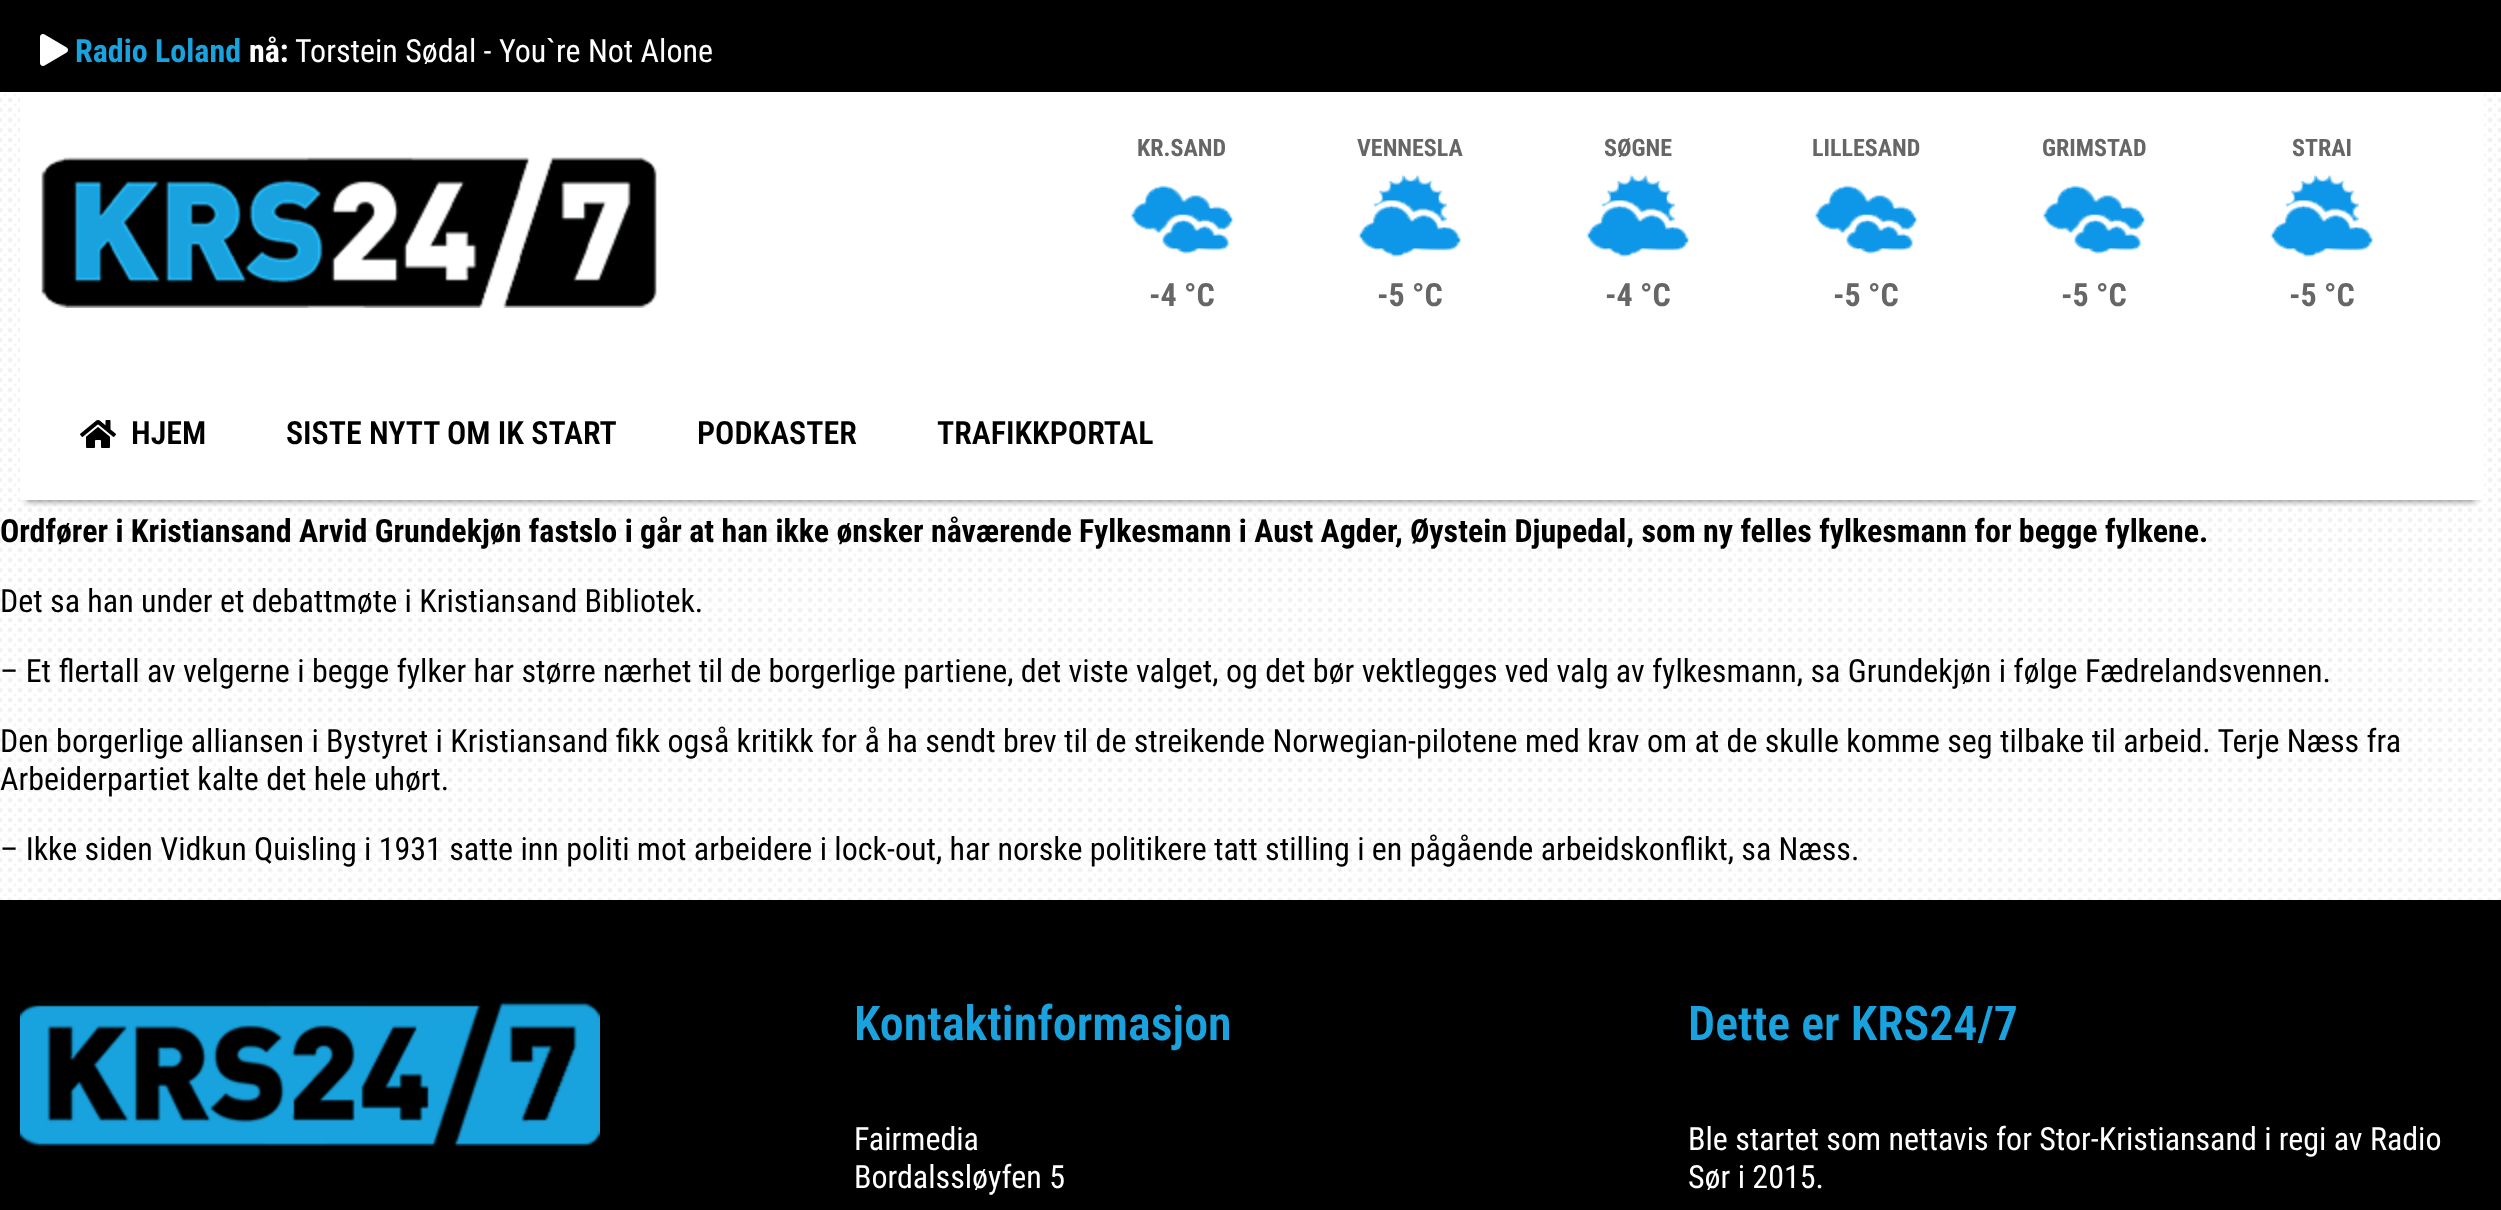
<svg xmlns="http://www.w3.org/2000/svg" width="2501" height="1210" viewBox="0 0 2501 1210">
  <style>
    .t1 { font: bold 32px Roboto Condensed; fill: #19a2de; }
    .t2 { font: bold 32px Roboto Condensed; fill: #fff; }
    .t3 { font: 32px Roboto Condensed; fill: #fff; }
    .t4 { font: bold 24px Roboto Condensed; fill: #666; }
    .t5 { font: bold 32px Roboto Condensed; fill: #666; }
    .t6 { font: 600 32px Roboto Condensed; fill: #000; }
    .t7 { font: bold 32px Roboto Condensed; fill: #000; }
    .t8 { font: 32px Roboto Condensed; fill: #000; }
    .t9 { font: 600 48px Roboto Condensed; fill: #19a2de; }
  </style>
  <defs>
    <clipPath id="clip1"><rect x="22" y="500" width="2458" height="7"/></clipPath>
  </defs>
  <rect width="100%" height="100%" fill="#fff"/>
  <image x="0" y="92" width="2501" height="808" href="images/1.png"/>
  <rect x="0" y="0" width="2501" height="92" fill="#000"/>
  <image x="40" y="34" width="28" height="32" href="images/2.png"/>
  <text x="75" y="62" class="t1">Radio Loland</text>
  <text x="249" y="62" class="t2">nå:</text>
  <text x="295" y="62" class="t3">Torstein Sødal - You`re Not Alone</text>
  <rect x="20" y="92" width="2462" height="408" fill="#fff"/>
  <image x="41" y="157" width="616" height="151" href="images/3.png"/>
  <text x="1137" y="156" class="t4">KR.SAND</text>
  <image x="1130" y="185" width="104" height="69" href="images/4.png"/>
  <text x="1149" y="306" class="t5">-4 °C</text>
  <text x="1357" y="156" class="t4">VENNESLA</text>
  <image x="1358" y="174" width="104" height="83" href="images/5.png"/>
  <text x="1377" y="306" class="t5">-5 °C</text>
  <text x="1604" y="156" class="t4">SØGNE</text>
  <image x="1586" y="174" width="104" height="83" href="images/5.png"/>
  <text x="1605" y="306" class="t5">-4 °C</text>
  <text x="1812" y="156" class="t4">LILLESAND</text>
  <image x="1814" y="185" width="104" height="69" href="images/4.png"/>
  <text x="1833" y="306" class="t5">-5 °C</text>
  <text x="2042" y="156" class="t4">GRIMSTAD</text>
  <image x="2042" y="185" width="104" height="69" href="images/4.png"/>
  <text x="2061" y="306" class="t5">-5 °C</text>
  <text x="2292" y="156" class="t4">STRAI</text>
  <image x="2270" y="174" width="104" height="83" href="images/5.png"/>
  <text x="2289" y="306" class="t5">-5 °C</text>
  <g clip-path="url(#clip1)">
    <rect x="26" y="382" width="2450" height="120" fill="#00000066" filter="blur(3px)"/>
  </g>
  <image x="80" y="420" width="36" height="28" href="images/6.png"/>
  <text x="131" y="444" class="t6">HJEM</text>
  <text x="286" y="444" class="t6">SISTE NYTT OM IK START</text>
  <text x="697" y="444" class="t6">PODKASTER</text>
  <text x="937" y="444" class="t6">TRAFIKKPORTAL</text>
  <text x="0" y="542" class="t7">Ordfører i Kristiansand Arvid Grundekjøn fastslo i går at han ikke ønsker nåværende Fylkesmann i Aust Agder, Øystein Djupedal, som ny felles fylkesmann for begge fylkene.</text>
  <text x="0" y="612" class="t8">Det sa han under et debattmøte i Kristiansand Bibliotek.</text>
  <text x="0" y="682" class="t8">– Et flertall av velgerne i begge fylker har større nærhet til de borgerlige partiene, det viste valget, og det bør vektlegges ved valg av fylkesmann, sa Grundekjøn i følge Fædrelandsvennen.</text>
  <text x="0" y="752" class="t8">Den borgerlige alliansen i Bystyret i Kristiansand fikk også kritikk for å ha sendt brev til de streikende Norwegian-pilotene med krav om at de skulle komme seg tilbake til arbeid. Terje Næss fra</text>
  <text x="0" y="790" class="t8">Arbeiderpartiet kalte det hele uhørt.</text>
  <text x="0" y="860" class="t8">– Ikke siden Vidkun Quisling i 1931 satte inn politi mot arbeidere i lock-out, har norske politikere tatt stilling i en pågående arbeidskonflikt, sa Næss.</text>
  <rect x="0" y="900" width="2501" height="310" fill="#000"/>
  <image x="20" y="1000" width="580" height="146" href="images/7.png"/>
  <text x="854" y="1040" class="t9">Kontaktinformasjon</text>
  <text x="854" y="1150" class="t3">Fairmedia</text>
  <text x="854" y="1188" class="t3">Bordalssløyfen 5</text>
  <text x="1688" y="1040" class="t9">Dette er KRS24/7</text>
  <text x="1688" y="1150" class="t3">Ble startet som nettavis for Stor-Kristiansand i regi av Radio</text>
  <text x="1688" y="1188" class="t3">Sør i 2015.</text>
</svg>
